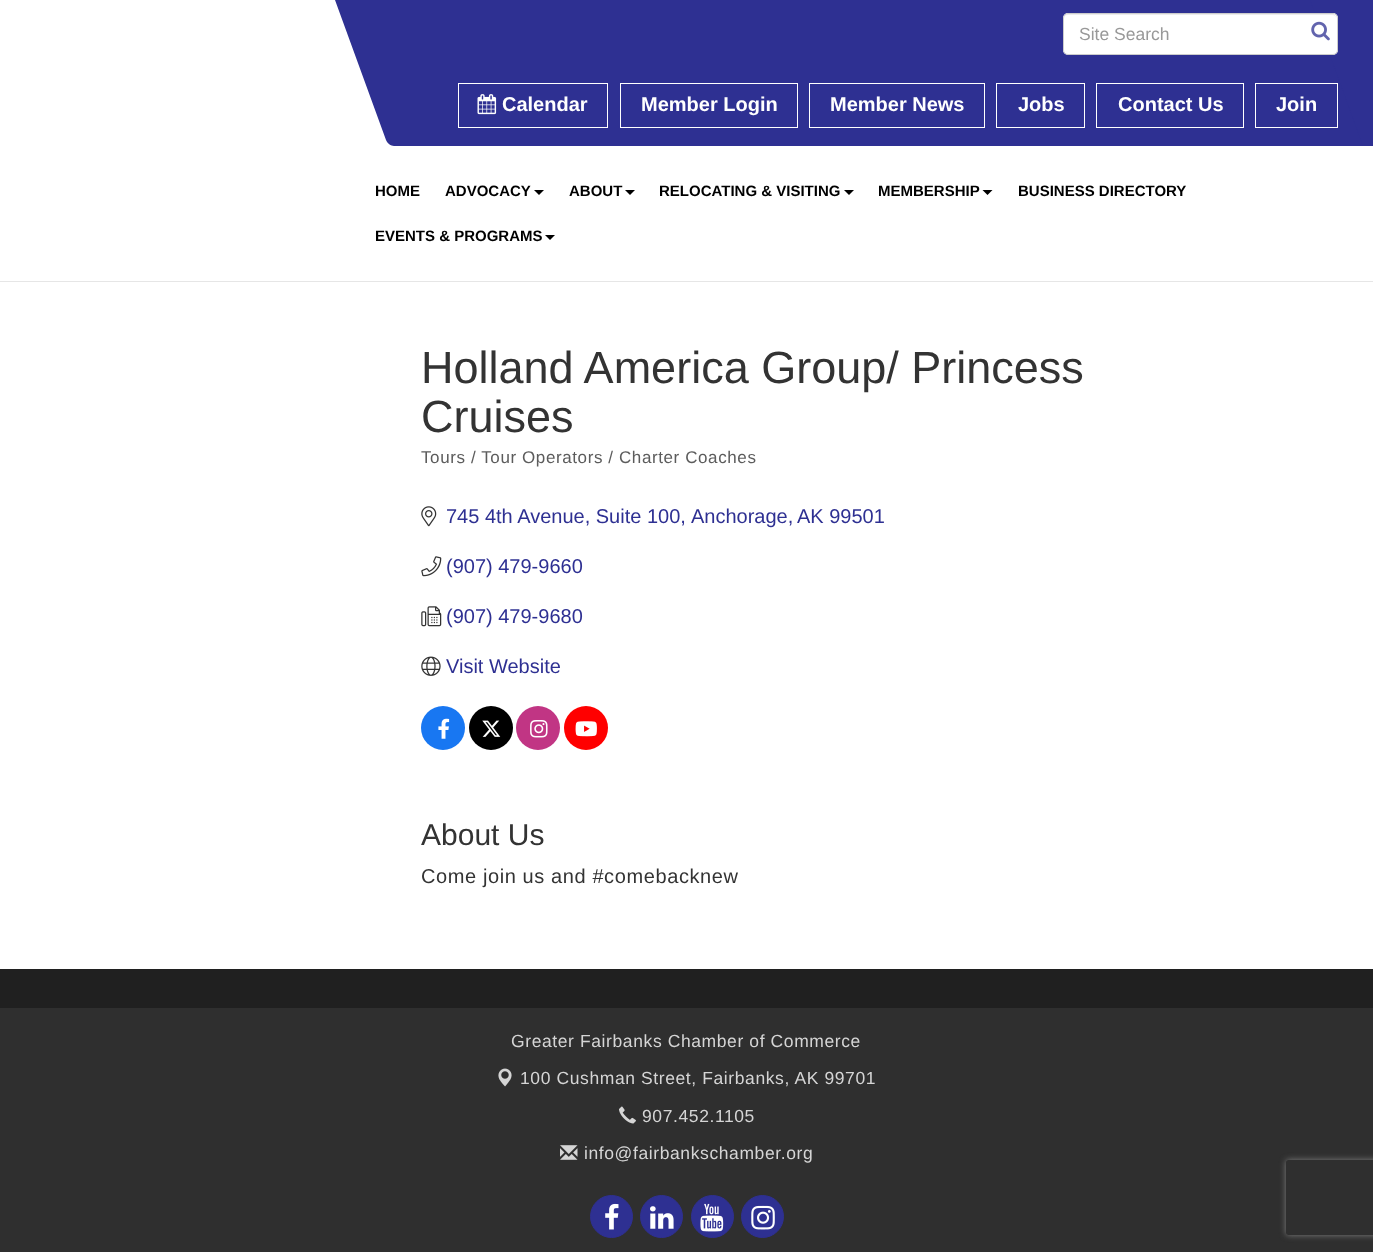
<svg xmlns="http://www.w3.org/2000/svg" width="1373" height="1252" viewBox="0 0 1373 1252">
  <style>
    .t1 { font: 17.5px Liberation Sans; fill: #999; }
    .t2 { font: bold 20px Liberation Sans; fill: #fff; }
    .t3 { font: bold 15px Liberation Sans; fill: #000; }
    .t4 { font: 45px Liberation Sans; fill: #333; }
    .t5 { font: 17px Liberation Sans; letter-spacing: 0.6px; fill: #5c5c5c; }
    .t6 { font: 20px Liberation Sans; fill: #2e3092; }
    .t7 { font: 30px Liberation Sans; fill: #333; }
    .t8 { font: 20px Liberation Sans; letter-spacing: 0.6px; fill: #333; }
    .t9 { font: 17.5px Liberation Sans; letter-spacing: 0.6px; fill: #d5d5d5; }
  </style>
  <defs>
    <clipPath id="clip1"><path d="M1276 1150H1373V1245H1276ZM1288.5 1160H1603.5C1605 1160 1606 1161 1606 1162.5V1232.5C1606 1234 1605 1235 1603.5 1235H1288.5C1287 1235 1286 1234 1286 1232.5V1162.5C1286 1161 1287 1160 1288.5 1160Z" clip-rule="evenodd"/></clipPath>
  </defs>
  <rect width="100%" height="100%" fill="#fff"/>
  <rect x="0" y="281" width="1373" height="1" fill="#e6e6e6"/>
  <path d="M335 0H1311L1364 146H394C391 146 387 143 386 140Z" fill="#2e3092"/>
  <path d="M1310 0H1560L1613 146H1363Z" fill="#2e3092"/>
  <rect x="1063" y="13" width="275" height="42" rx="5" fill="#fff"/>
  <path d="M1068 15H1332C1335 15 1336 17 1336 19C1336 16 1335 14 1332 14H1068C1065 14 1064 16 1064 19C1064 17 1065 15 1068 15Z" fill="#ececec"/>
  <rect x="1063.5" y="13.5" width="274" height="41" rx="4.5" fill="none" stroke="#ccc"/>
  <text x="1079" y="40" class="t1">Site Search</text>
  <image x="1311" y="21" width="19" height="20" href="images/1.png"/>
  <rect x="458.5" y="83.5" width="149" height="44" fill="none" stroke="#fff"/>
  <image x="477" y="94" width="20" height="21" href="images/2.png"/>
  <text x="502" y="111" class="t2">Calendar</text>
  <rect x="620.5" y="83.5" width="177" height="44" fill="none" stroke="#fff"/>
  <text x="641" y="111" class="t2">Member Login</text>
  <rect x="809.5" y="83.5" width="175" height="44" fill="none" stroke="#fff"/>
  <text x="830" y="111" class="t2">Member News</text>
  <rect x="996.5" y="83.5" width="88" height="44" fill="none" stroke="#fff"/>
  <text x="1018" y="111" class="t2">Jobs</text>
  <rect x="1096.5" y="83.5" width="147" height="44" fill="none" stroke="#fff"/>
  <text x="1118" y="111" class="t2">Contact Us</text>
  <rect x="1255.5" y="83.5" width="82" height="44" fill="none" stroke="#fff"/>
  <text x="1276" y="111" class="t2">Join</text>
  <text x="375" y="196" class="t3">HOME</text>
  <text x="445" y="196" class="t3">ADVOCACY</text>
  <path d="M534 190H544L539 195Z" fill="#000"/>
  <text x="569" y="196" class="t3">ABOUT</text>
  <path d="M625 190H635L630 195Z" fill="#000"/>
  <text x="659" y="196" class="t3">RELOCATING &amp; VISITING</text>
  <path d="M844 190H854L849 195Z" fill="#000"/>
  <text x="878" y="196" class="t3">MEMBERSHIP</text>
  <path d="M982.5 190H992.5L987.5 195Z" fill="#000"/>
  <text x="1018" y="196" class="t3">BUSINESS DIRECTORY</text>
  <text x="375" y="241" class="t3">EVENTS &amp; PROGRAMS</text>
  <path d="M545 235H555L550 240Z" fill="#000"/>
  <text x="421" y="383" class="t4">Holland America Group/ Princess</text>
  <text x="421" y="432" class="t4">Cruises</text>
  <text x="421" y="463" class="t5">Tours / Tour Operators / Charter Coaches</text>
  <image x="421" y="506" width="16" height="21" href="images/3.png"/>
  <text x="446" y="523" class="t6">745 4th Avenue, Suite 100,</text>
  <text x="691" y="523" class="t6">Anchorage,</text>
  <text x="797" y="523" class="t6">AK 99501</text>
  <image x="421" y="556" width="21" height="21" href="images/4.png"/>
  <text x="446" y="573" class="t6">(907) 479-9660</text>
  <image x="421" y="606" width="21" height="21" href="images/5.png"/>
  <text x="446" y="623" class="t6">(907) 479-9680</text>
  <image x="421" y="656" width="20" height="20" href="images/6.png"/>
  <text x="446" y="673" class="t6">Visit Website</text>
  <circle cx="443" cy="728" r="22" fill="#1877f2"/>
  <image x="438" y="718" width="12" height="21" href="images/7.png"/>
  <circle cx="491" cy="728" r="22" fill="#000"/>
  <image x="482" y="720" width="19" height="17" href="images/8.png"/>
  <circle cx="538" cy="728" r="22" fill="#c13584"/>
  <image x="530" y="720" width="18" height="18" href="images/9.png"/>
  <circle cx="586" cy="728" r="22" fill="#f00"/>
  <image x="575" y="721" width="22" height="16" href="images/10.png"/>
  <text x="421" y="845" class="t7">About Us</text>
  <text x="421" y="883" class="t8">Come join us and #comebacknew</text>
  <rect x="0" y="969" width="1373" height="39" fill="#202020"/>
  <rect x="0" y="1008" width="1373" height="244" fill="#2f2f2f"/>
  <text x="511" y="1047" class="t9">Greater Fairbanks Chamber of Commerce</text>
  <image x="498" y="1068" width="14" height="19" href="images/11.png"/>
  <text x="520" y="1084" class="t9">100 Cushman Street, Fairbanks, AK 99701</text>
  <image x="619" y="1106" width="17" height="18" href="images/12.png"/>
  <text x="642" y="1122" class="t9">907.452.1105</text>
  <image x="560" y="1145" width="18" height="15" href="images/13.png"/>
  <text x="584" y="1159" class="t9">info@fairbankschamber.org</text>
  <circle cx="611.5" cy="1216.5" r="21" fill="#2e3092" stroke="#2e3092"/>
  <image x="605" y="1203" width="14" height="27" href="images/14.png"/>
  <circle cx="661.5" cy="1216.5" r="21" fill="#2e3092" stroke="#2e3092"/>
  <image x="650" y="1206" width="24" height="23" href="images/15.png"/>
  <circle cx="712.5" cy="1216.5" r="21" fill="#2e3092" stroke="#2e3092"/>
  <image x="700" y="1203" width="24" height="29" href="images/16.png"/>
  <circle cx="762.5" cy="1216.5" r="21" fill="#2e3092" stroke="#2e3092"/>
  <image x="751" y="1205" width="24" height="25" href="images/17.png"/>
  <g clip-path="url(#clip1)">
    <rect x="1286" y="1160" width="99" height="75" rx="2.5" fill="#808080" filter="blur(3px)"/>
  </g>
</svg>
